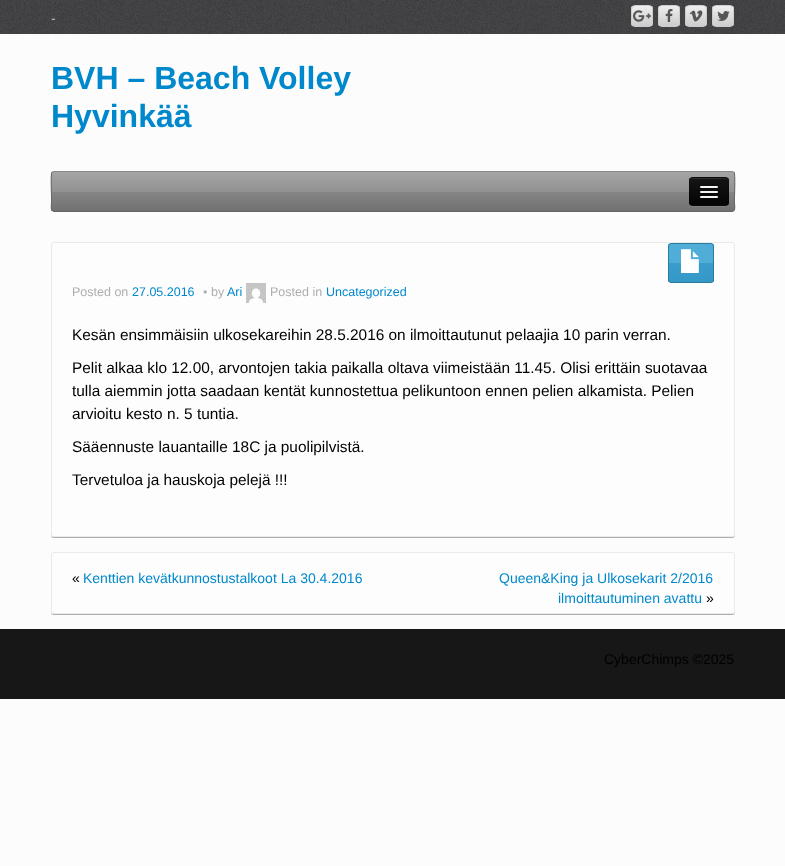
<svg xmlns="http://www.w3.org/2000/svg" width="785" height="866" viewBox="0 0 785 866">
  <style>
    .t1 { font: 14px Liberation Sans; fill: #bababa; }
    .t2 { font: bold 32px Liberation Sans; fill: #08c; }
    .t3 { font: 12.5px Liberation Sans; fill: #afaeae; }
    .t4 { font: 12.5px Liberation Sans; fill: #08c; }
    .t5 { font: 15.4px Liberation Sans; fill: #000; }
    .t6 { font: 14px Liberation Sans; fill: #000; }
    .t7 { font: 14px Liberation Sans; fill: #08c; }
  </style>
  <defs>
    <clipPath id="clip1"><rect x="631" y="5" width="22" height="22" rx="4"/></clipPath>
    <linearGradient id="g1" gradientUnits="userSpaceOnUse" x1="642" y1="6" x2="642" y2="26"><stop offset="0" stop-color="#eee"/><stop offset="1" stop-color="#ccc"/></linearGradient>
    <clipPath id="clip2"><rect x="658" y="5" width="22" height="22" rx="4"/></clipPath>
    <linearGradient id="g2" gradientUnits="userSpaceOnUse" x1="669" y1="6" x2="669" y2="26"><stop offset="0" stop-color="#eee"/><stop offset="1" stop-color="#ccc"/></linearGradient>
    <clipPath id="clip3"><rect x="685" y="5" width="22" height="22" rx="4"/></clipPath>
    <linearGradient id="g3" gradientUnits="userSpaceOnUse" x1="696" y1="6" x2="696" y2="26"><stop offset="0" stop-color="#eee"/><stop offset="1" stop-color="#ccc"/></linearGradient>
    <clipPath id="clip4"><rect x="712" y="5" width="22" height="22" rx="4"/></clipPath>
    <linearGradient id="g4" gradientUnits="userSpaceOnUse" x1="723" y1="6" x2="723" y2="26"><stop offset="0" stop-color="#eee"/><stop offset="1" stop-color="#ccc"/></linearGradient>
    <clipPath id="clip5"><rect x="51" y="171" width="684" height="41" rx="3"/></clipPath>
    <linearGradient id="g5" gradientUnits="userSpaceOnUse" x1="393" y1="172" x2="393" y2="211"><stop offset="0" stop-color="#b6b6b6"/><stop offset="0.01" stop-color="#a4a4a4"/><stop offset="0.51" stop-color="#919191"/><stop offset="0.52" stop-color="#858585"/><stop offset="1" stop-color="#717171"/></linearGradient>
    <clipPath id="clip6"><rect x="689" y="177" width="40" height="29" rx="4"/></clipPath>
    <linearGradient id="g6" gradientUnits="userSpaceOnUse" x1="709" y1="178" x2="709" y2="205"><stop offset="0" stop-color="#151515"/><stop offset="1" stop-color="#040404"/></linearGradient>
    <clipPath id="clip7"><rect x="668" y="243" width="46" height="40" rx="3"/></clipPath>
    <linearGradient id="g7" gradientUnits="userSpaceOnUse" x1="691" y1="244" x2="691" y2="282"><stop offset="0" stop-color="#6fb7d6"/><stop offset="0.01" stop-color="#4fadd8"/><stop offset="0.5" stop-color="#4fadd8"/><stop offset="0.51" stop-color="#399cca"/><stop offset="1" stop-color="#3599c7"/></linearGradient>
  </defs>
  <rect width="100%" height="100%" fill="#fcfcfc"/>
  <image x="0" y="0" width="785" height="34" href="images/1.png"/>
  <text x="51" y="23" class="t1">-</text>
  <g clip-path="url(#clip1)">
    <rect x="631" y="6" width="22" height="20" fill="url(#g1)"/>
  </g>
  <rect x="631.5" y="5.5" width="21" height="21" rx="3.5" fill="none" stroke="#ccc"/>
  <image x="633" y="10" width="18" height="12" href="images/2.png"/>
  <g clip-path="url(#clip2)">
    <rect x="658" y="6" width="22" height="20" fill="url(#g2)"/>
  </g>
  <rect x="658.5" y="5.5" width="21" height="21" rx="3.5" fill="none" stroke="#ccc"/>
  <image x="665" y="9" width="8" height="13" href="images/3.png"/>
  <g clip-path="url(#clip3)">
    <rect x="685" y="6" width="22" height="20" fill="url(#g3)"/>
  </g>
  <rect x="685.5" y="5.5" width="21" height="21" rx="3.5" fill="none" stroke="#ccc"/>
  <image x="689" y="10" width="14" height="12" href="images/4.png"/>
  <g clip-path="url(#clip4)">
    <rect x="712" y="6" width="22" height="20" fill="url(#g4)"/>
  </g>
  <rect x="712.5" y="5.5" width="21" height="21" rx="3.5" fill="none" stroke="#ccc"/>
  <image x="717" y="11" width="13" height="10" href="images/5.png"/>
  <text x="51" y="89" class="t2">BVH – Beach Volley</text>
  <text x="51" y="127" class="t2">Hyvinkää</text>
  <g clip-path="url(#clip5)">
    <rect x="51" y="172" width="684" height="39" fill="url(#g5)"/>
  </g>
  <path d="M52 172L54 171.5H732L734 172" fill="none" stroke="#888"/>
  <path d="M734 172C735.5 174 734.5 193.5 734.5 197.5V203C734.5 204.5 736 211.5 732 211.5H54C50 211.5 51.5 204.5 51.5 203V197.5C51.5 193.5 50.5 174 52 172" fill="none" stroke="#666"/>
  <path d="M689 202C689 208 694 207 698 207H720C724 207 729 208 729 202C729 204 727 206 725 206H693C691 206 689 204 689 202Z" fill="#808080"/>
  <rect x="689" y="177" width="40" height="29" rx="4" fill="#0e0e0e"/>
  <g clip-path="url(#clip6)">
    <rect x="689" y="178" width="40" height="27" fill="url(#g6)"/>
  </g>
  <path d="M693 179H725C727 179 728 180 728 182C728 177 724 178 719.5 178H698.5C694 178 690 177 690 182C690 180 691 179 693 179Z" fill="#2c2c2c"/>
  <path d="M727.5 204.5C727 205 726 205.5 725 205.5H693C692 205.5 691 205 690.5 204.5" fill="none" stroke="#00000040"/>
  <path d="M690.5 204.5C690 204 689.5 203 689.5 202V181C689.5 180 690 179 690.5 178.5C691 178 692 177.5 693 177.5H725C726 177.5 727 178 727.5 178.5C728 179 728.5 180 728.5 181V202C728.5 203 728 204 727.5 204.5" fill="none" stroke="#0000001a"/>
  <path d="M700 187.5C699 189.5 703.5 189 703.5 189H714.5C714.5 189 719 189.5 718 187.5C717 188.5 710.5 188 709 188C707.5 188 701 188.5 700 187.5Z" fill="#0b0b0b"/>
  <rect x="700" y="186" width="18" height="2" rx="1" fill="#f5f5f5"/>
  <path d="M700 192.5C699 194.5 703.5 194 703.5 194H714.5C714.5 194 719 194.5 718 192.5C717 193.5 710.5 193 709 193C707.5 193 701 193.5 700 192.5Z" fill="#080808"/>
  <rect x="700" y="191" width="18" height="2" rx="1" fill="#f5f5f5"/>
  <rect x="700" y="196" width="18" height="2" rx="1" fill="#f5f5f5"/>
  <path d="M51 534V535C51 537 52 538 54 538H732C734 538 735 537 735 535V534C735 536 734 537 732 537H54C52 537 51 536 51 534Z" fill="#adadad"/>
  <rect x="51.5" y="242.5" width="683" height="294" rx="2.5" fill="#fdfdfd" stroke="#eaeaea"/>
  <g clip-path="url(#clip7)">
    <rect x="668" y="244" width="46" height="38" fill="url(#g7)"/>
  </g>
  <rect x="668.5" y="243.5" width="45" height="39" rx="2.5" fill="none" stroke="#2b7a9f"/>
  <image x="681" y="249" width="18" height="24" href="images/6.png"/>
  <text x="72" y="296" class="t3">Posted on</text>
  <text x="132" y="296" class="t4">27.05.2016</text>
  <text x="203" y="296" class="t3">•</text>
  <text x="211" y="296" class="t3">by</text>
  <text x="227" y="296" class="t4">Ari</text>
  <image x="246" y="283" width="20" height="20" href="images/7.png"/>
  <text x="270" y="296" class="t3">Posted in</text>
  <text x="326" y="296" class="t4">Uncategorized</text>
  <text x="72" y="340" class="t5">Kesän ensimmäisiin ulkosekareihin 28.5.2016 on ilmoittautunut pelaajia 10 parin verran.</text>
  <text x="72" y="373" class="t5">Pelit alkaa klo 12.00, arvontojen takia paikalla oltava viimeistään 11.45. Olisi erittäin suotavaa</text>
  <text x="72" y="396" class="t5">tulla aiemmin jotta saadaan kentät kunnostettua pelikuntoon ennen pelien alkamista. Pelien</text>
  <text x="72" y="419" class="t5">arvioitu kesto n. 5 tuntia.</text>
  <text x="72" y="452" class="t5">Sääennuste lauantaille 18C ja puolipilvistä.</text>
  <text x="72" y="485" class="t5">Tervetuloa ja hauskoja pelejä !!!</text>
  <path d="M51 611V612C51 614 52 615 54 615H732C734 615 735 614 735 612V611C735 613 734 614 732 614H54C52 614 51 613 51 611Z" fill="#adadad"/>
  <rect x="51.5" y="552.5" width="683" height="61" rx="2.5" fill="#fdfdfd" stroke="#eaeaea"/>
  <text x="72" y="583" class="t6">«</text>
  <text x="83" y="583" class="t7">Kenttien kevätkunnostustalkoot La 30.4.2016</text>
  <text x="499" y="583" class="t7">Queen&amp;King ja Ulkosekarit 2/2016</text>
  <text x="558" y="603" class="t7">ilmoittautuminen avattu</text>
  <text x="706" y="603" class="t6">»</text>
  <rect x="0" y="629" width="785" height="70" fill="#171717"/>
  <text x="604" y="664" class="t6">CyberChimps ©2025</text>
</svg>
